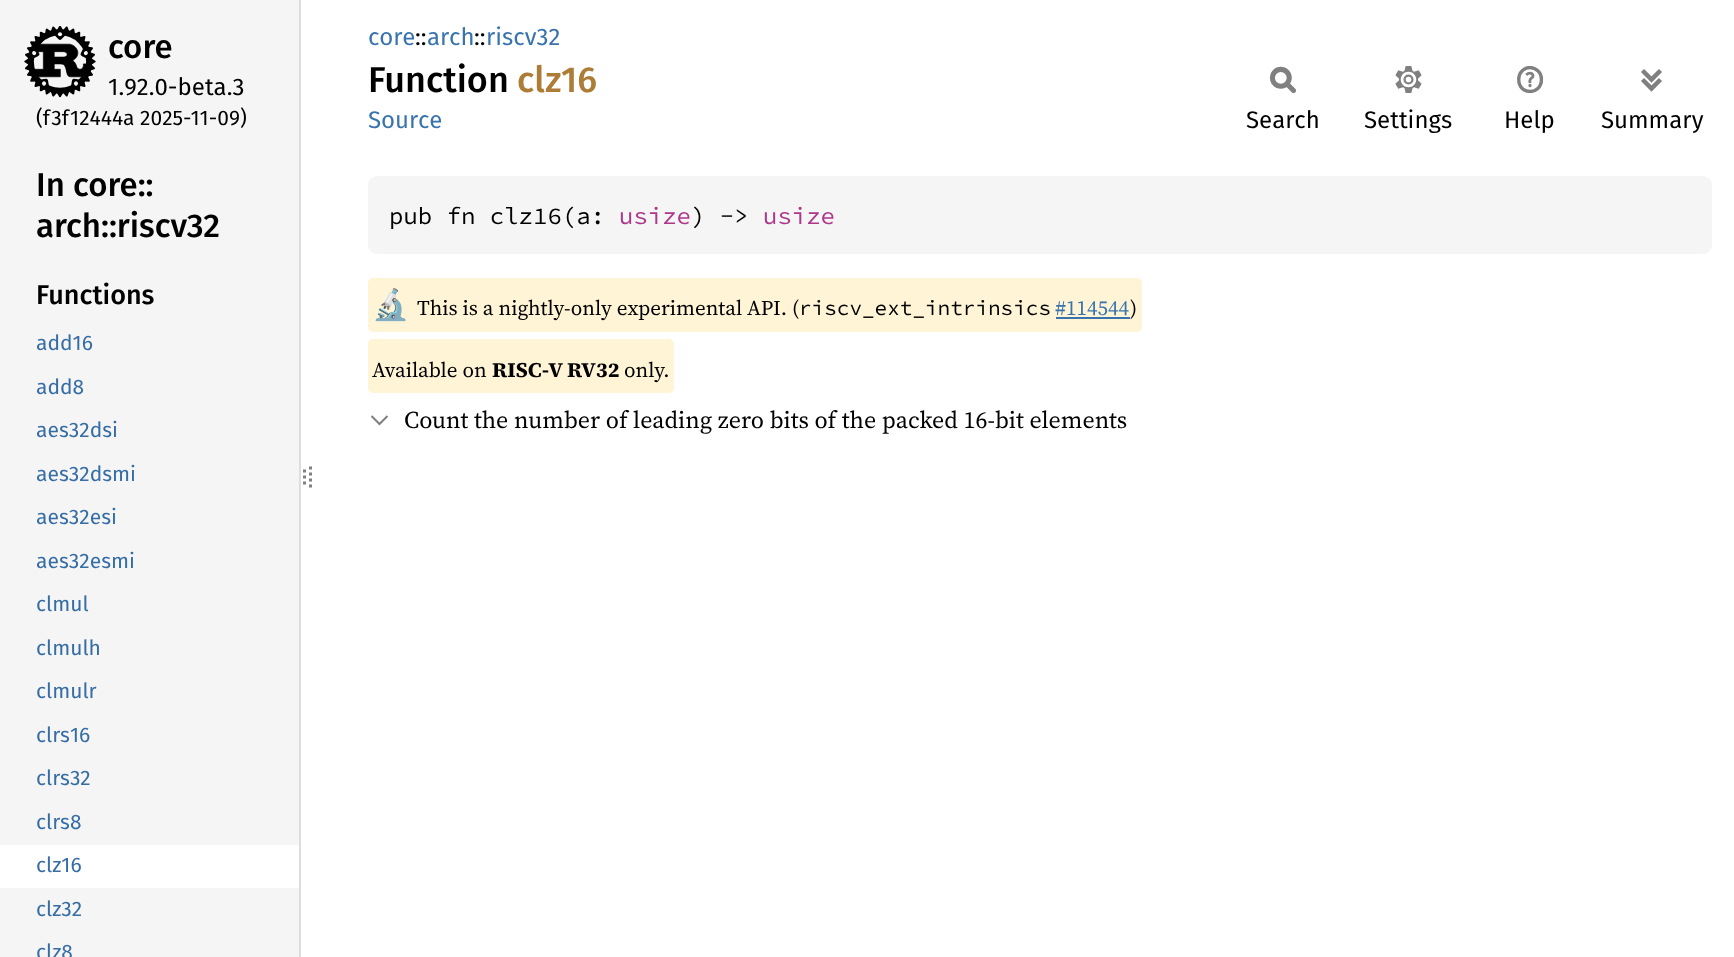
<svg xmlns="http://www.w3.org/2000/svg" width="1734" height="957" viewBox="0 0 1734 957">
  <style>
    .t1 { font: 500 33px Fira Sans; fill: #000; }
    .t2 { font: 24px Fira Sans; fill: #000; }
    .t3 { font: 21px Fira Sans; fill: #000; }
    .t4 { font: 500 27px Fira Sans; fill: #000; }
    .t5 { font: 21px Fira Sans; fill: #356da4; }
    .t6 { font: 24px Fira Sans; fill: #3873ad; }
    .t7 { font: 500 36px Fira Sans; fill: #000; }
    .t8 { font: 500 36px Fira Sans; fill: #ad7c37; }
    .t9 { font: 24px Source Code Pro; fill: #000; }
    .t10 { font: 24px Source Code Pro; fill: #ad378a; }
    .t11 { font: 30px Noto Color Emoji; fill: #000; }
    .t12 { font: 21px 'Source Serif 4'; fill: #000; }
    .t13 { font: 21px Source Code Pro; fill: #000; }
    .t14 { font: 21px 'Source Serif 4'; fill: #3873ad; }
    .t15 { font: bold 21px 'Source Serif 4'; fill: #000; }
    .t16 { font: 24px 'Source Serif 4'; fill: #000; }
  </style>
  <rect width="100%" height="100%" fill="#fff"/>
  <rect x="0" y="0" width="299" height="957" fill="#f5f5f5"/>
  <rect x="299" y="0" width="2" height="957" fill="#ddd"/>
  <image x="24" y="26" width="72" height="72" href="images/1.png"/>
  <text x="108" y="58" class="t1">core</text>
  <text x="108" y="95" class="t2">1.92.0-beta.3</text>
  <text x="36" y="125" class="t3">(f3f12444a 2025-11-09)</text>
  <text x="36" y="196" class="t1">In core::</text>
  <text x="36" y="237" class="t1">arch::riscv32</text>
  <text x="36" y="304" class="t4">Functions</text>
  <text x="36" y="350" class="t5">add16</text>
  <text x="36" y="394" class="t5">add8</text>
  <text x="36" y="437" class="t5">aes32dsi</text>
  <text x="36" y="481" class="t5">aes32dsmi</text>
  <text x="36" y="524" class="t5">aes32esi</text>
  <text x="36" y="568" class="t5">aes32esmi</text>
  <text x="36" y="611" class="t5">clmul</text>
  <text x="36" y="655" class="t5">clmulh</text>
  <text x="36" y="698" class="t5">clmulr</text>
  <text x="36" y="742" class="t5">clrs16</text>
  <text x="36" y="785" class="t5">clrs32</text>
  <text x="36" y="829" class="t5">clrs8</text>
  <rect x="0" y="845" width="299" height="43" fill="#fff"/>
  <text x="36" y="872" class="t5">clz16</text>
  <text x="36" y="916" class="t5">clz32</text>
  <text x="36" y="959" class="t5">clz8</text>
  <path d="M304.5 469.5V472.5M304.5 475.5V478.5M304.5 481.5V484.5" fill="none" stroke="#808080" stroke-width="3"/>
  <path d="M310.5 466.5V490.5" fill="none" stroke="#808080" stroke-width="3" stroke-dasharray="3 3"/>
  <text x="368" y="45" class="t6">core</text>
  <text x="415" y="45" class="t2">::</text>
  <text x="427" y="45" class="t6">arch</text>
  <text x="474" y="45" class="t2">::</text>
  <text x="486" y="45" class="t6">riscv32</text>
  <text x="368" y="92" class="t7">Function</text>
  <text x="517" y="92" class="t8">clz16</text>
  <text x="368" y="128" class="t6">Source</text>
  <image x="1269" y="66" width="27" height="27" href="images/2.png"/>
  <text x="1246" y="128" class="t2">Search</text>
  <image x="1395" y="66" width="27" height="27" href="images/3.png"/>
  <text x="1364" y="128" class="t2">Settings</text>
  <image x="1517" y="66" width="27" height="27" href="images/4.png"/>
  <text x="1504" y="128" class="t2">Help</text>
  <image x="1641" y="69" width="21" height="23" href="images/5.png"/>
  <text x="1601" y="128" class="t2">Summary</text>
  <rect x="368" y="176" width="1344" height="78" rx="9" fill="#f5f5f5"/>
  <text x="389" y="224" class="t9">pub fn clz16(a:</text>
  <text x="619" y="224" class="t10">usize</text>
  <text x="691" y="224" class="t9">) -&gt;</text>
  <text x="763" y="224" class="t10">usize</text>
  <rect x="368" y="278" width="774" height="54" rx="5" fill="#fff5d6"/>
  <text x="372" y="315" class="t11">🔬</text>
  <text x="417" y="315" class="t12">This is a nightly-only experimental API. (</text>
  <text x="799" y="315" class="t13">riscv_ext_intrinsics</text>
  <text x="1055" y="315" class="t14">#114544</text>
  <text x="1130" y="315" class="t12">)</text>
  <rect x="1056" y="317" width="74" height="2" fill="#3873ad"/>
  <rect x="368" y="339" width="306" height="54" rx="5" fill="#fff5d6"/>
  <text x="372" y="377" class="t12">Available on</text>
  <text x="492" y="377" class="t15">RISC-V RV32</text>
  <text x="624" y="377" class="t12">only.</text>
  <path d="M371.5 416L379.5 424L387.5 416" fill="none" stroke="#808080" stroke-width="2"/>
  <text x="404" y="428" class="t16">Count the number of leading zero bits of the packed 16-bit elements</text>
</svg>
